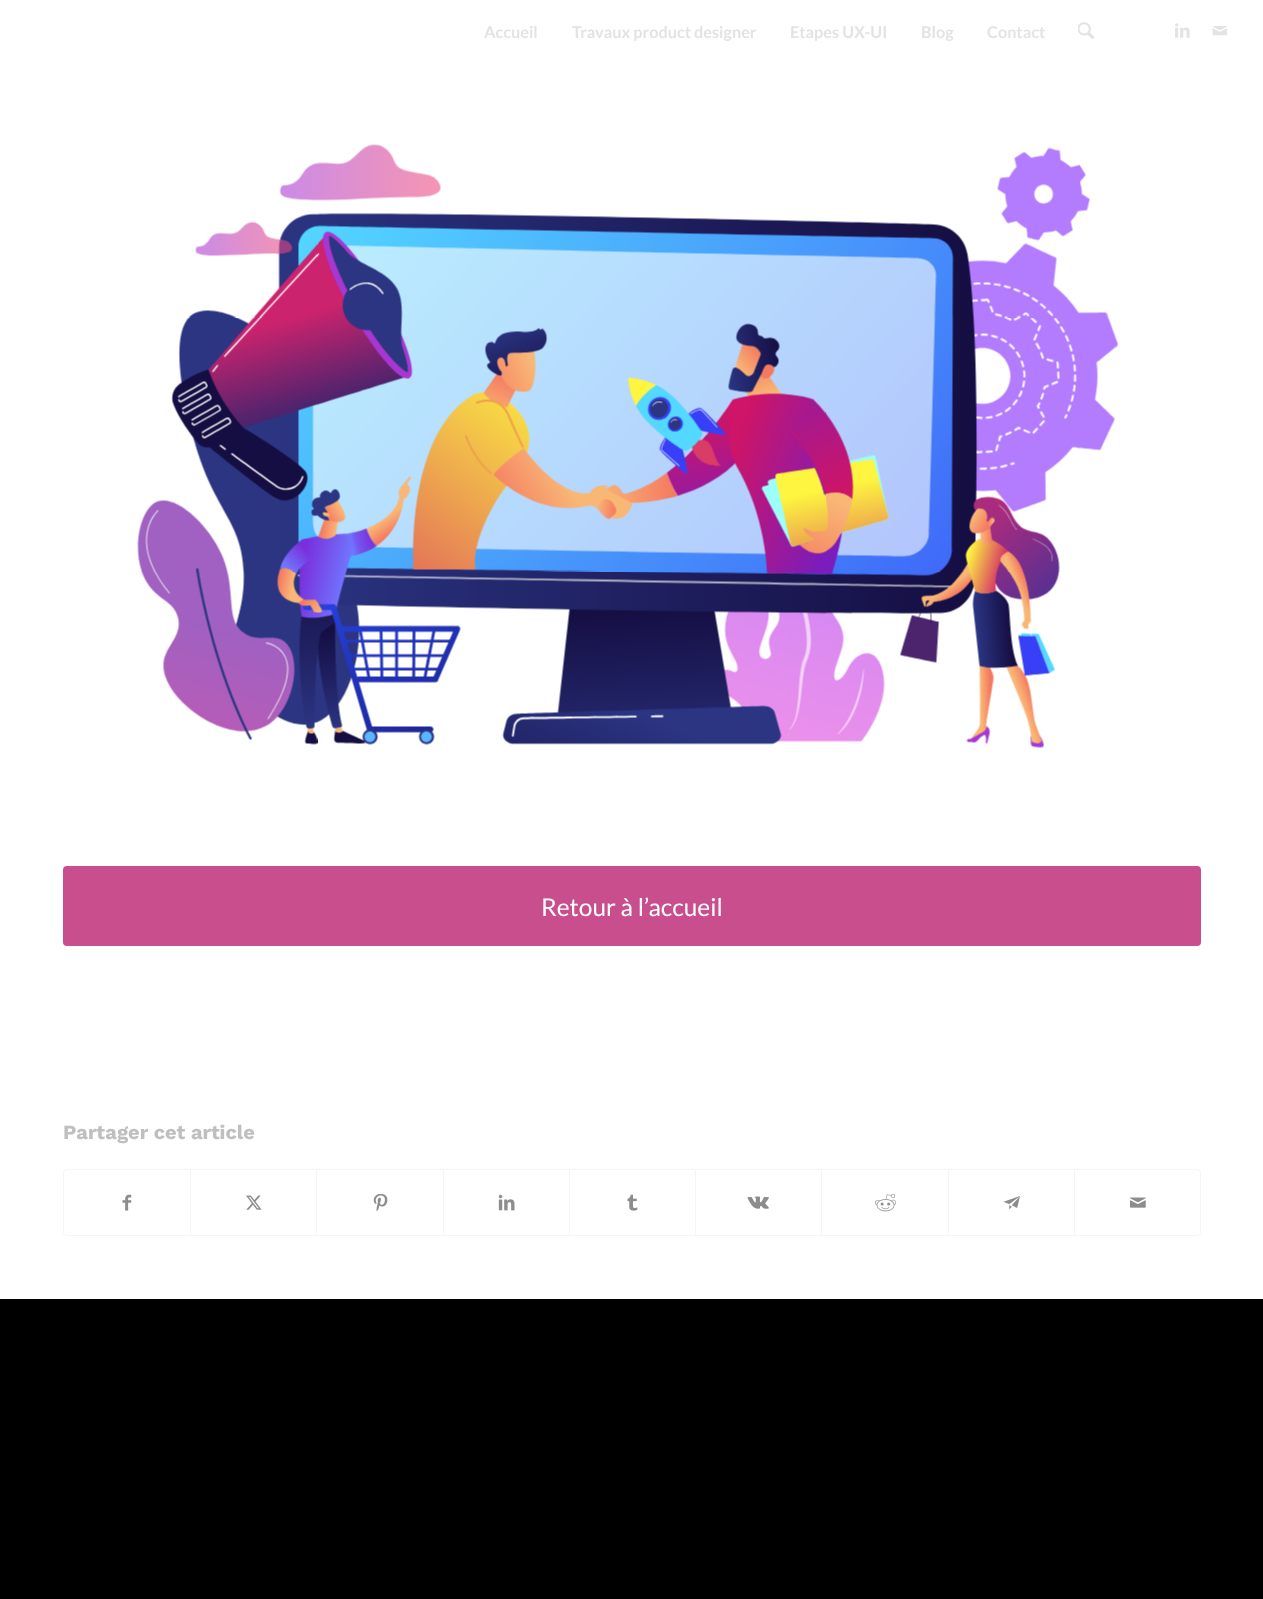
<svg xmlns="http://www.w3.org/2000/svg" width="1263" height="1599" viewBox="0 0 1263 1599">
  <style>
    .t1 { font: bold 16.25px Lato; fill: #e3e3e3; }
    .t2 { font: 24.5px Lato; fill: #fff; }
    .t3 { font: bold 20px Work Sans; fill: #bfbfbf; }
  </style>
  <rect width="100%" height="100%" fill="#000"/>
  <rect x="0" y="0" width="1263" height="1299" fill="#fff"/>
  <text x="484" y="38" class="t1">Accueil</text>
  <text x="572" y="38" class="t1">Travaux product designer</text>
  <text x="790" y="38" class="t1">Etapes UX-UI</text>
  <text x="921" y="38" class="t1">Blog</text>
  <text x="987" y="38" class="t1">Contact</text>
  <image x="1078" y="22" width="16" height="17" href="images/1.png"/>
  <image x="1175" y="23" width="15" height="15" href="images/2.png"/>
  <image x="1212" y="26" width="15" height="10" href="images/3.png"/>
  <image x="137" y="144" width="982" height="604" href="images/4.png"/>
  <rect x="63" y="866" width="1138" height="80" rx="4" fill="#c94e8e"/>
  <text x="541" y="916" class="t2">Retour à l’accueil</text>
  <text x="63" y="1139" class="t3">Partager cet article</text>
  <rect x="63.5" y="1169.5" width="1137" height="66" rx="3.5" fill="none" stroke="#f5f5f5"/>
  <image x="122" y="1194" width="10" height="17" href="images/5.png"/>
  <rect x="190" y="1170" width="1" height="65" fill="#f5f5f5"/>
  <image x="246" y="1195" width="16" height="15" href="images/6.png"/>
  <rect x="316" y="1170" width="1" height="65" fill="#f5f5f5"/>
  <image x="373" y="1193" width="15" height="19" href="images/7.png"/>
  <rect x="443" y="1170" width="1" height="65" fill="#f5f5f5"/>
  <image x="498" y="1194" width="17" height="17" href="images/8.png"/>
  <rect x="569" y="1170" width="1" height="65" fill="#f5f5f5"/>
  <image x="627" y="1194" width="11" height="17" href="images/9.png"/>
  <rect x="695" y="1170" width="1" height="65" fill="#f5f5f5"/>
  <image x="747" y="1196" width="22" height="13" href="images/10.png"/>
  <rect x="821" y="1170" width="1" height="65" fill="#f5f5f5"/>
  <image x="875" y="1193" width="22" height="19" href="images/11.png"/>
  <rect x="948" y="1170" width="1" height="65" fill="#f5f5f5"/>
  <image x="1003" y="1196" width="17" height="13" href="images/12.png"/>
  <rect x="1074" y="1170" width="1" height="65" fill="#f5f5f5"/>
  <image x="1130" y="1197" width="16" height="11" href="images/13.png"/>
</svg>
